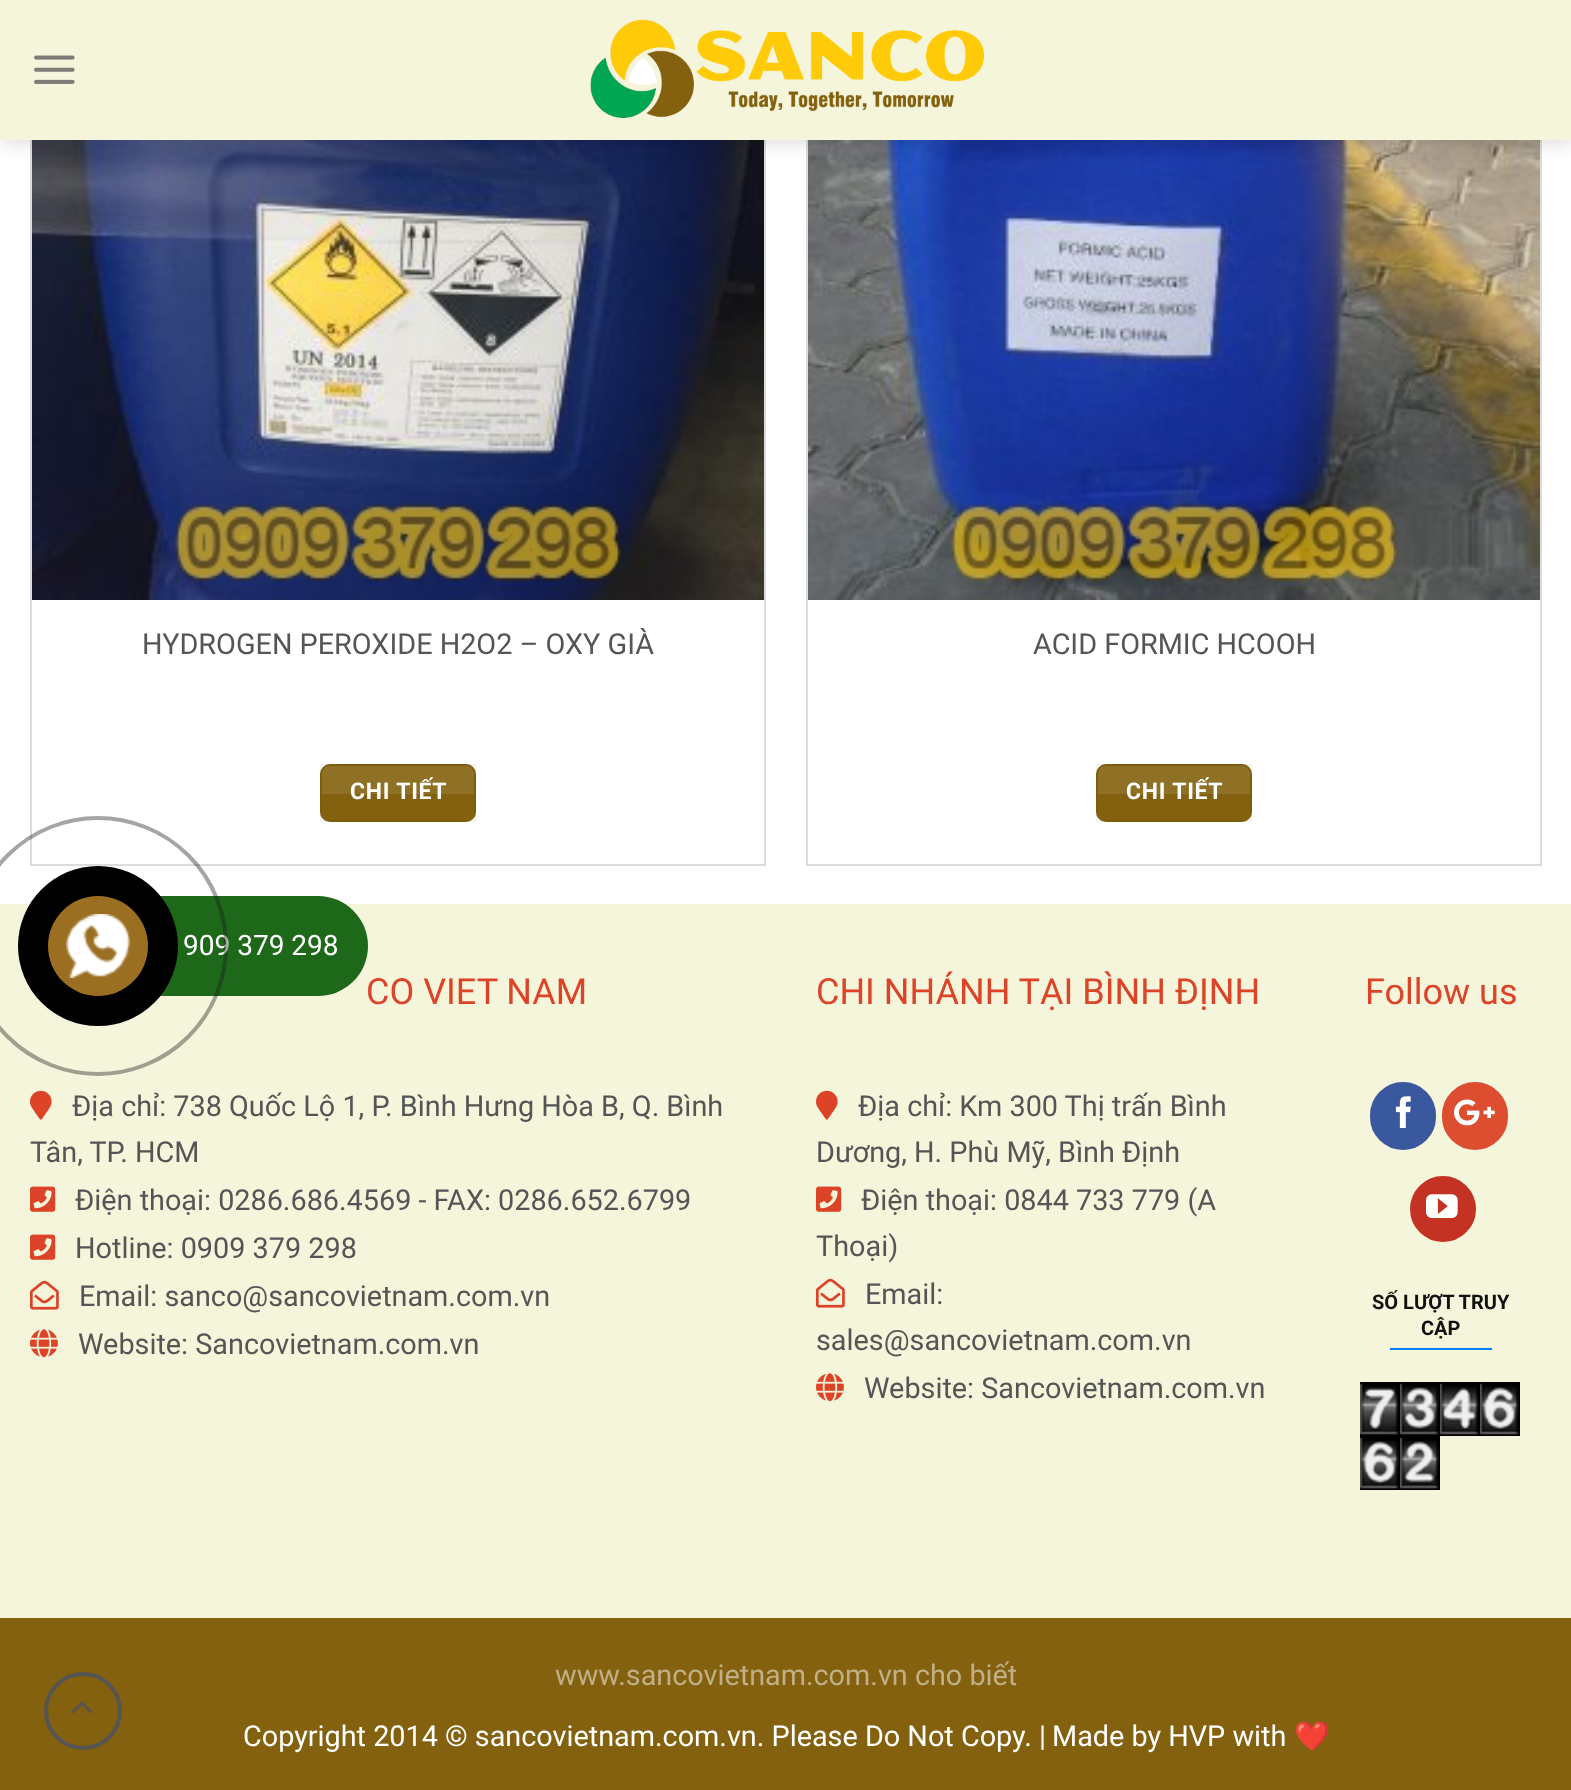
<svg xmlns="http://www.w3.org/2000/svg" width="1571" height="1790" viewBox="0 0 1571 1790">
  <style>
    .t1 { font: 28.8px Roboto; fill: #555; }
    .t2 { font: bold 23px Roboto; letter-spacing: 0.75px; fill: #fff; }
    .t3 { font: 36px Roboto; fill: #dd4326; }
    .t4 { font: bold 20px Roboto; fill: #111; }
    .t5 { font: 28.8px Roboto; fill: #c1b087; }
    .t6 { font: 28.8px Roboto; fill: #fff; }
    .t7 { font: 28.8px Noto Color Emoji; fill: #fff; }
    .t8 { font: 28px Roboto; fill: #fff; }
  </style>
  <rect width="100%" height="100%" fill="#fff"/>
  <rect x="31" y="-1" width="734" height="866" fill="none" stroke="#dcdcdc" stroke-width="2"/>
  <image x="32" y="140" width="732" height="460" href="images/3.png"/>
  <rect x="807" y="-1" width="734" height="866" fill="none" stroke="#dcdcdc" stroke-width="2"/>
  <image x="808" y="140" width="732" height="460" href="images/4.png"/>
  <rect x="2" y="2" width="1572" height="140" fill="#00000026" filter="blur(10px)"/>
  <rect x="0" y="0" width="1571" height="140" fill="#f5f5dc"/>
  <image x="34" y="55" width="41" height="29" href="images/1.png"/>
  <image x="590" y="19" width="394" height="99" href="images/2.png"/>
  <text x="142" y="654" class="t1">HYDROGEN PEROXIDE H2O2 – OXY GIÀ</text>
  <rect x="320" y="764" width="156" height="58" rx="10" fill="#83610e"/>
  <rect x="321" y="765" width="154" height="56" fill="none" stroke="#0000000d" stroke-width="2"/>
  <path d="M330 766H466C470.5 766 474 769.5 474 774V794H322V774C322 769.5 325.5 766 330 766Z" fill="#ffffff1a"/>
  <text x="350" y="799" class="t2">CHI TIẾT</text>
  <text x="1033" y="654" class="t1">ACID FORMIC HCOOH</text>
  <rect x="1096" y="764" width="156" height="58" rx="10" fill="#83610e"/>
  <rect x="1097" y="765" width="154" height="56" fill="none" stroke="#0000000d" stroke-width="2"/>
  <path d="M1106 766H1242C1246.5 766 1250 769.5 1250 774V794H1098V774C1098 769.5 1101.5 766 1106 766Z" fill="#ffffff1a"/>
  <text x="1126" y="799" class="t2">CHI TIẾT</text>
  <rect x="0" y="904" width="1571" height="714" fill="#f5f5dc"/>
  <text x="366" y="1004" class="t3">CO VIET NAM</text>
  <image x="30" y="1090" width="22" height="30" href="images/5.png"/>
  <text x="72" y="1116" class="t1">Địa chỉ: 738 Quốc Lộ 1, P. Bình Hưng Hòa B, Q. Bình</text>
  <text x="30" y="1162" class="t1">Tân, TP. HCM</text>
  <image x="30" y="1186" width="26" height="26" href="images/6.png"/>
  <text x="75" y="1210" class="t1">Điện thoại: 0286.686.4569 - FAX: 0286.652.6799</text>
  <image x="30" y="1234" width="26" height="26" href="images/6.png"/>
  <text x="75" y="1258" class="t1">Hotline: 0909 379 298</text>
  <image x="30" y="1280" width="29" height="30" href="images/7.png"/>
  <text x="79" y="1306" class="t1">Email: sanco@sancovietnam.com.vn</text>
  <image x="30" y="1329" width="28" height="29" href="images/8.png"/>
  <text x="78" y="1354" class="t1">Website: Sancovietnam.com.vn</text>
  <text x="816" y="1004" class="t3">CHI NHÁNH TẠI BÌNH ĐỊNH</text>
  <image x="816" y="1090" width="22" height="30" href="images/5.png"/>
  <text x="858" y="1116" class="t1">Địa chỉ: Km 300 Thị trấn Bình</text>
  <text x="816" y="1162" class="t1">Dương, H. Phù Mỹ, Bình Định</text>
  <image x="816" y="1186" width="26" height="26" href="images/6.png"/>
  <text x="861" y="1210" class="t1">Điện thoại: 0844 733 779 (A</text>
  <text x="816" y="1256" class="t1">Thoại)</text>
  <image x="816" y="1278" width="29" height="30" href="images/7.png"/>
  <text x="865" y="1304" class="t1">Email:</text>
  <text x="816" y="1350" class="t1">sales@sancovietnam.com.vn</text>
  <image x="816" y="1373" width="28" height="29" href="images/8.png"/>
  <text x="864" y="1398" class="t1">Website: Sancovietnam.com.vn</text>
  <text x="1365" y="1004" class="t3">Follow us</text>
  <rect x="1371" y="1083" width="64" height="66" rx="32" fill="#3a589d" stroke="#3a589d" stroke-width="2"/>
  <image x="1395" y="1096" width="16" height="32" href="images/9.png"/>
  <rect x="1443" y="1083" width="64" height="66" rx="32" fill="#dd4e31" stroke="#dd4e31" stroke-width="2"/>
  <image x="1454" y="1099" width="41" height="27" href="images/10.png"/>
  <circle cx="1443" cy="1209" r="32" fill="#c33223" stroke="#c33223" stroke-width="2"/>
  <image x="1426" y="1194" width="32" height="24" href="images/11.png"/>
  <text x="1372" y="1309" class="t4">SỐ LƯỢT TRUY</text>
  <text x="1421" y="1335" class="t4">CẬP</text>
  <rect x="1390" y="1348" width="102" height="2" fill="#007fff"/>
  <image x="1360" y="1382" width="40" height="54" href="images/12.png"/>
  <image x="1400" y="1382" width="40" height="54" href="images/13.png"/>
  <image x="1440" y="1382" width="40" height="54" href="images/14.png"/>
  <image x="1480" y="1382" width="40" height="54" href="images/15.png"/>
  <image x="1360" y="1436" width="40" height="54" href="images/15.png"/>
  <image x="1400" y="1436" width="40" height="54" href="images/16.png"/>
  <rect x="0" y="1618" width="1571" height="172" fill="#83610e"/>
  <circle cx="83" cy="1711" r="37" fill="none" stroke="#555" stroke-width="4"/>
  <image x="71" y="1701" width="22" height="13" href="images/17.png"/>
  <text x="555" y="1685" class="t5">www.sancovietnam.com.vn cho biết</text>
  <text x="243" y="1746" class="t6">Copyright 2014 © sancovietnam.com.vn. Please Do Not Copy. |</text>
  <text x="1052" y="1746" class="t6">Made by HVP with</text>
  <text x="1294" y="1746" class="t7">❤️</text>
  <rect x="48" y="896" width="320" height="100" rx="50" fill="#1d6819"/>
  <text x="183" y="955" class="t8">909 379 298</text>
  <circle cx="98" cy="946" r="128" fill="none" stroke="#1e1e1e66" stroke-width="4"/>
  <circle cx="98" cy="946" r="80" fill="#000"/>
  <circle cx="98" cy="946" r="50" fill="#9b6f22"/>
  <image x="66" y="914" width="64" height="64" href="images/18.png"/>
</svg>
